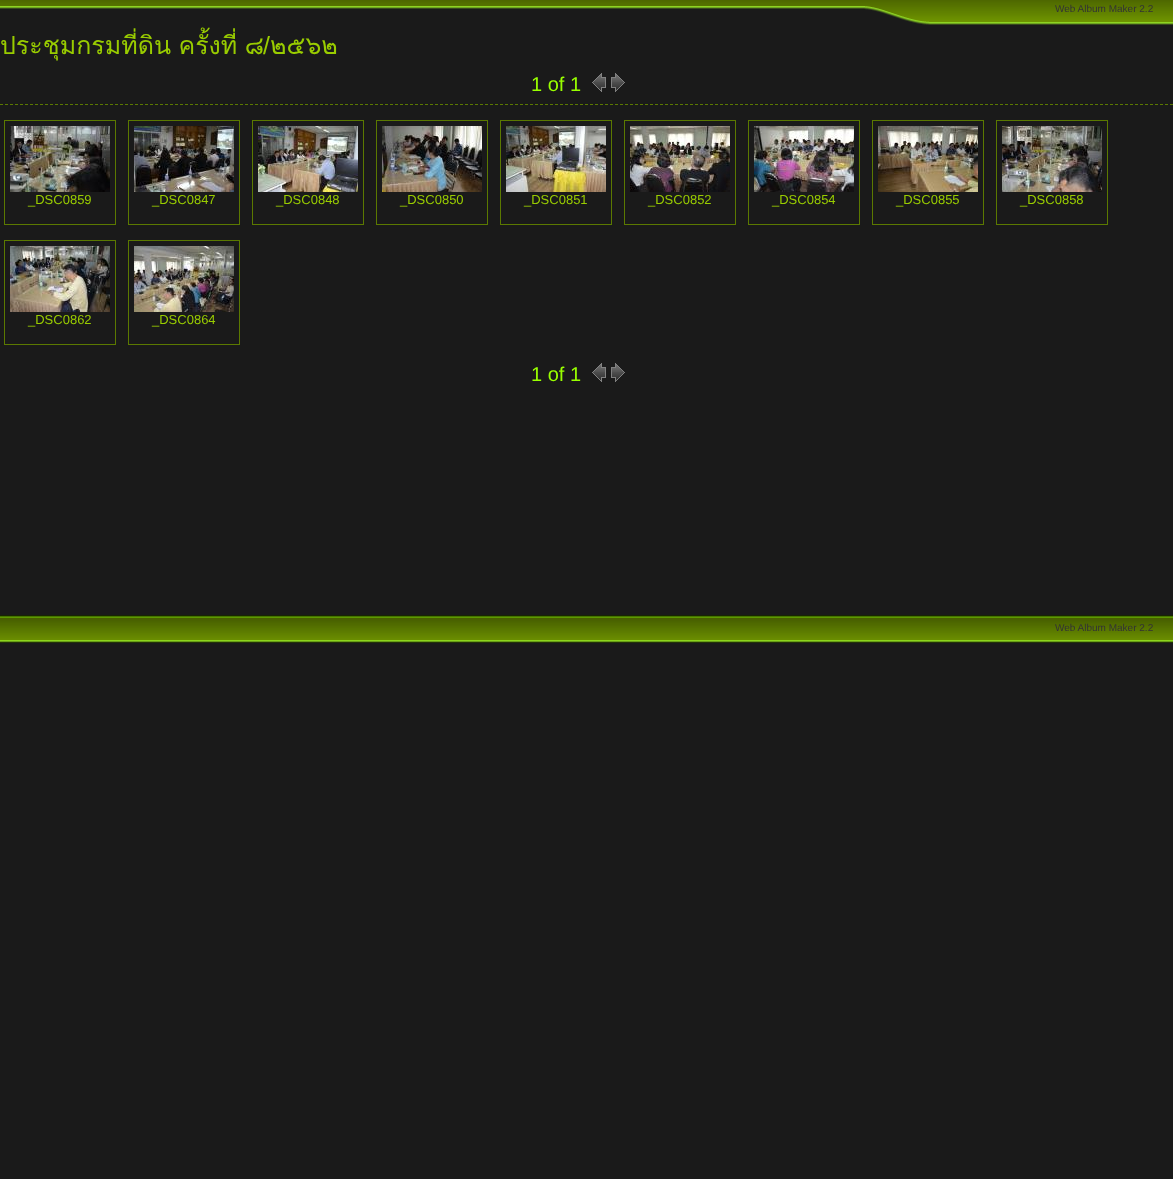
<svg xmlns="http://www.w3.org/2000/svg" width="1173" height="1179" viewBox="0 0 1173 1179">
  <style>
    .t1 { font: 10px Liberation Sans; fill: #333; }
    .t2 { font: 25px Loma; fill: #9c0; }
    .t3 { font: 25px Liberation Sans; fill: #9c0; }
    .t4 { font: 20px Liberation Sans; fill: #9f0; }
    .t5 { font: 13px Liberation Sans; fill: #9c0; }
  </style>
  <rect width="100%" height="100%" fill="#1a1a1a"/>
  <path d="M0 104.5H1173" fill="none" stroke="#5b7900" stroke-dasharray="3 2"/>
  <image x="0" y="0" width="1173" height="25" href="images/1.png"/>
  <text x="1055" y="12" class="t1">Web Album Maker 2.2</text>
  <text x="0" y="54" word-spacing="-1" class="t2">ประชุมกรมที่ดิน ครั้งที่ ๘</text>
  <text x="263" y="54" class="t3">/</text>
  <text x="270" y="54" class="t2">๒๕๖๒</text>
  <text x="531" y="91" class="t4">1 of 1</text>
  <image x="592" y="73" width="14" height="19" href="images/2.png"/>
  <image x="611" y="73" width="14" height="19" href="images/3.png"/>
  <rect x="4.5" y="120.5" width="111" height="104" fill="none" stroke="#5b7900"/>
  <image x="10" y="126" width="100" height="66" href="images/4.png"/>
  <text x="28" y="204" class="t5">_DSC0859</text>
  <rect x="128.5" y="120.5" width="111" height="104" fill="none" stroke="#5b7900"/>
  <image x="134" y="126" width="100" height="66" href="images/5.png"/>
  <text x="152" y="204" class="t5">_DSC0847</text>
  <rect x="252.5" y="120.5" width="111" height="104" fill="none" stroke="#5b7900"/>
  <image x="258" y="126" width="100" height="66" href="images/6.png"/>
  <text x="276" y="204" class="t5">_DSC0848</text>
  <rect x="376.5" y="120.5" width="111" height="104" fill="none" stroke="#5b7900"/>
  <image x="382" y="126" width="100" height="66" href="images/7.png"/>
  <text x="400" y="204" class="t5">_DSC0850</text>
  <rect x="500.5" y="120.5" width="111" height="104" fill="none" stroke="#5b7900"/>
  <image x="506" y="126" width="100" height="66" href="images/8.png"/>
  <text x="524" y="204" class="t5">_DSC0851</text>
  <rect x="624.5" y="120.5" width="111" height="104" fill="none" stroke="#5b7900"/>
  <image x="630" y="126" width="100" height="66" href="images/9.png"/>
  <text x="648" y="204" class="t5">_DSC0852</text>
  <rect x="748.5" y="120.5" width="111" height="104" fill="none" stroke="#5b7900"/>
  <image x="754" y="126" width="100" height="66" href="images/10.png"/>
  <text x="772" y="204" class="t5">_DSC0854</text>
  <rect x="872.5" y="120.5" width="111" height="104" fill="none" stroke="#5b7900"/>
  <image x="878" y="126" width="100" height="66" href="images/11.png"/>
  <text x="896" y="204" class="t5">_DSC0855</text>
  <rect x="996.5" y="120.5" width="111" height="104" fill="none" stroke="#5b7900"/>
  <image x="1002" y="126" width="100" height="66" href="images/12.png"/>
  <text x="1020" y="204" class="t5">_DSC0858</text>
  <rect x="4.5" y="240.5" width="111" height="104" fill="none" stroke="#5b7900"/>
  <image x="10" y="246" width="100" height="66" href="images/13.png"/>
  <text x="28" y="324" class="t5">_DSC0862</text>
  <rect x="128.5" y="240.5" width="111" height="104" fill="none" stroke="#5b7900"/>
  <image x="134" y="246" width="100" height="66" href="images/14.png"/>
  <text x="152" y="324" class="t5">_DSC0864</text>
  <text x="531" y="381" class="t4">1 of 1</text>
  <image x="592" y="363" width="14" height="19" href="images/2.png"/>
  <image x="611" y="363" width="14" height="19" href="images/3.png"/>
  <image x="0" y="615" width="1173" height="28" href="images/15.png"/>
  <text x="1055" y="631" class="t1">Web Album Maker 2.2</text>
</svg>
